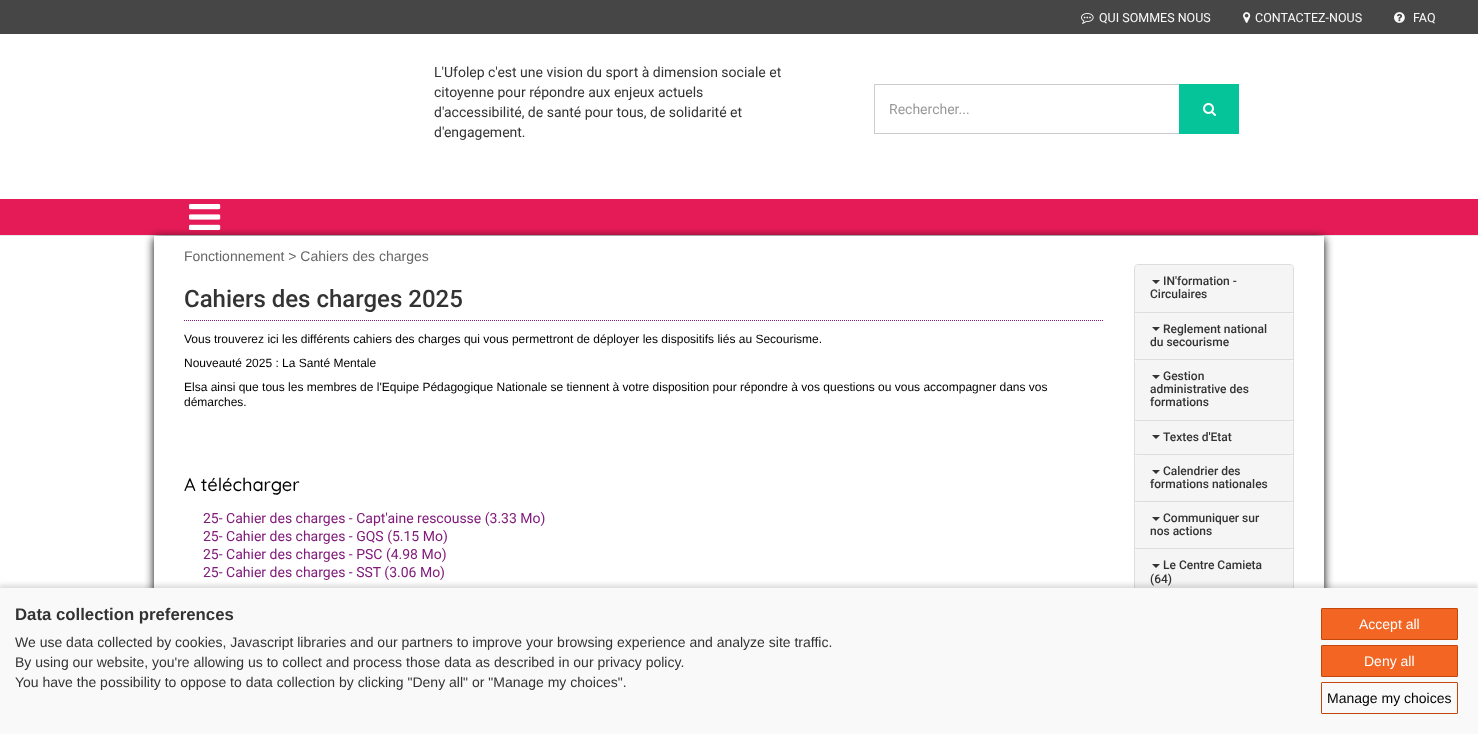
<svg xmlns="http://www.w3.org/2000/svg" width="1478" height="734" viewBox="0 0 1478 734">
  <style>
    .t1 { font: 12.5px Roboto; fill: #f9f9f9; }
    .t2 { font: 14px Roboto; fill: #333; }
    .t3 { font: 14px Roboto; fill: #999; }
    .t4 { font: 14px Liberation Sans; fill: #666; }
    .t5 { font: 500 24px Roboto; fill: #333; }
    .t6 { font: 12px Liberation Sans; fill: #000; }
    .t7 { font: 500 18.25px Quicksand; fill: #000; }
    .t8 { font: 14px Roboto; fill: #811a7b; }
    .t9 { font: 500 12px Roboto; fill: #333; }
    .t10 { font: bold 16.75px Liberation Sans; fill: #333; }
    .t11 { font: 14px Liberation Sans; fill: #333; }
    .t12 { font: 14px Liberation Sans; fill: #fff; }
    .t13 { font: 14px Liberation Sans; fill: #000; }
  </style>
  <defs>
    <clipPath id="clip1"><path d="M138 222H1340V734H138ZM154 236H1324V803H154Z" clip-rule="evenodd"/></clipPath>
  </defs>
  <rect width="100%" height="100%" fill="#fff"/>
  <rect x="0" y="0" width="1478" height="34" fill="#464646"/>
  <image x="1081" y="13" width="13" height="11" href="images/1.png"/>
  <text x="1099" y="22" class="t1">QUI SOMMES NOUS</text>
  <image x="1243" y="12" width="8" height="11" href="images/2.png"/>
  <text x="1255" y="22" class="t1">CONTACTEZ-NOUS</text>
  <image x="1394" y="12" width="11" height="11" href="images/3.png"/>
  <text x="1413" y="22" class="t1">FAQ</text>
  <text x="434" y="77" class="t2">L'Ufolep c'est une vision du sport à dimension sociale et</text>
  <text x="434" y="97" class="t2">citoyenne pour répondre aux enjeux actuels</text>
  <text x="434" y="117" class="t2">d'accessibilité, de santé pour tous, de solidarité et</text>
  <text x="434" y="137" class="t2">d'engagement.</text>
  <rect x="874.5" y="84.5" width="364" height="49" fill="none" stroke="#ccc"/>
  <text x="889" y="114" class="t3">Rechercher...</text>
  <rect x="1179" y="84" width="60" height="50" fill="#06c49a"/>
  <image x="1203" y="103" width="13" height="13" href="images/4.png"/>
  <rect x="0" y="199" width="1478" height="36" fill="#e51b58"/>
  <rect x="0" y="235" width="1478" height="1" fill="#eaeaea"/>
  <g clip-path="url(#clip1)">
    <rect x="154" y="238" width="1170" height="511" fill="#000" filter="blur(5px)"/>
  </g>
  <image x="189" y="204" width="32" height="26" href="images/5.png"/>
  <text x="184" y="261" class="t4">Fonctionnement &gt; Cahiers des charges</text>
  <text x="184" y="307" class="t5">Cahiers des charges 2025</text>
  <path d="M184 320.5H1104" fill="none" stroke="#811a7b" stroke-dasharray="1 1"/>
  <text x="184" y="343" class="t6">Vous trouverez ici les différents cahiers des charges qui vous permettront de déployer les dispositifs liés au Secourisme.</text>
  <text x="184" y="367" class="t6">Nouveauté 2025 : La Santé Mentale</text>
  <text x="184" y="391" class="t6">Elsa ainsi que tous les membres de l'Equipe Pédagogique Nationale se tiennent à votre disposition pour répondre à vos questions ou vous accompagner dans vos</text>
  <text x="184" y="406" class="t6">démarches.</text>
  <text x="184" y="491" class="t7">A télécharger</text>
  <text x="203" y="523" class="t8">25- Cahier des charges - Capt'aine rescousse (3.33 Mo)</text>
  <text x="203" y="541" class="t8">25- Cahier des charges - GQS (5.15 Mo)</text>
  <text x="203" y="559" class="t8">25- Cahier des charges - PSC (4.98 Mo)</text>
  <text x="203" y="577" class="t8">25- Cahier des charges - SST (3.06 Mo)</text>
  <rect x="1134.5" y="264.5" width="159" height="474" rx="3.5" fill="none" stroke="#ddd"/>
  <path d="M1138 265H1290C1291.5 265 1293 266.5 1293 268V313H1135V268C1135 266.5 1136.5 265 1138 265Z" fill="#f5f5f5"/>
  <rect x="1135" y="312" width="158" height="1" fill="#ddd"/>
  <path d="M1152 280H1160L1156 284Z" fill="#333"/>
  <text x="1163" y="285" class="t9">IN'formation -</text>
  <text x="1150" y="298" class="t9">Circulaires</text>
  <path d="M1138 313H1290C1291.5 313 1293 314.5 1293 316V360H1135V316C1135 314.5 1136.5 313 1138 313Z" fill="#f5f5f5"/>
  <rect x="1135" y="359" width="158" height="1" fill="#ddd"/>
  <path d="M1152 327H1160L1156 331Z" fill="#333"/>
  <text x="1163" y="333" class="t9">Reglement national</text>
  <text x="1150" y="346" class="t9">du secourisme</text>
  <path d="M1138 360H1290C1291.5 360 1293 361.5 1293 363V421H1135V363C1135 361.5 1136.5 360 1138 360Z" fill="#f5f5f5"/>
  <rect x="1135" y="420" width="158" height="1" fill="#ddd"/>
  <path d="M1152 375H1160L1156 379Z" fill="#333"/>
  <text x="1163" y="380" class="t9">Gestion</text>
  <text x="1150" y="393" class="t9">administrative des</text>
  <text x="1150" y="406" class="t9">formations</text>
  <path d="M1138 421H1290C1291.5 421 1293 422.5 1293 424V455H1135V424C1135 422.5 1136.5 421 1138 421Z" fill="#f5f5f5"/>
  <rect x="1135" y="454" width="158" height="1" fill="#ddd"/>
  <path d="M1152 435H1160L1156 439Z" fill="#333"/>
  <text x="1163" y="441" class="t9">Textes d'Etat</text>
  <path d="M1138 455H1290C1291.5 455 1293 456.5 1293 458V502H1135V458C1135 456.5 1136.5 455 1138 455Z" fill="#f5f5f5"/>
  <rect x="1135" y="501" width="158" height="1" fill="#ddd"/>
  <path d="M1152 470H1160L1156 474Z" fill="#333"/>
  <text x="1163" y="475" class="t9">Calendrier des</text>
  <text x="1150" y="488" class="t9">formations nationales</text>
  <path d="M1138 502H1290C1291.5 502 1293 503.5 1293 505V549H1135V505C1135 503.5 1136.5 502 1138 502Z" fill="#f5f5f5"/>
  <rect x="1135" y="548" width="158" height="1" fill="#ddd"/>
  <path d="M1152 517H1160L1156 521Z" fill="#333"/>
  <text x="1163" y="522" class="t9">Communiquer sur</text>
  <text x="1150" y="535" class="t9">nos actions</text>
  <path d="M1138 549H1290C1291.5 549 1293 550.5 1293 552V597H1135V552C1135 550.5 1136.5 549 1138 549Z" fill="#f5f5f5"/>
  <path d="M1152 564H1160L1156 568Z" fill="#333"/>
  <text x="1163" y="569" class="t9">Le Centre Camieta</text>
  <text x="1150" y="583" class="t9">(64)</text>
  <rect x="-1" y="585" width="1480" height="148" fill="#00000024" filter="blur(2.5px)"/>
  <rect x="0" y="588" width="1478" height="146" fill="#f9f9f9"/>
  <text x="15" y="620" class="t10">Data collection preferences</text>
  <text x="15" y="647" class="t11">We use data collected by cookies, Javascript libraries and our partners to improve your browsing experience and analyze site traffic.</text>
  <text x="15" y="667" class="t11">By using our website, you're allowing us to collect and process those data as described in our privacy policy.</text>
  <text x="15" y="687" class="t11">You have the possibility to oppose to data collection by clicking "Deny all" or "Manage my choices".</text>
  <rect x="1321.5" y="608.5" width="136" height="31" rx="0.5" fill="#f26522" stroke="#c3460b"/>
  <text x="1359" y="629" class="t12">Accept all</text>
  <rect x="1321.5" y="645.5" width="136" height="31" rx="0.5" fill="#f26522" stroke="#c3460b"/>
  <text x="1364" y="666" class="t12">Deny all</text>
  <rect x="1321.5" y="682.5" width="136" height="31" rx="0.5" fill="none" stroke="#c3460b"/>
  <text x="1327" y="703" class="t13">Manage my choices</text>
</svg>
